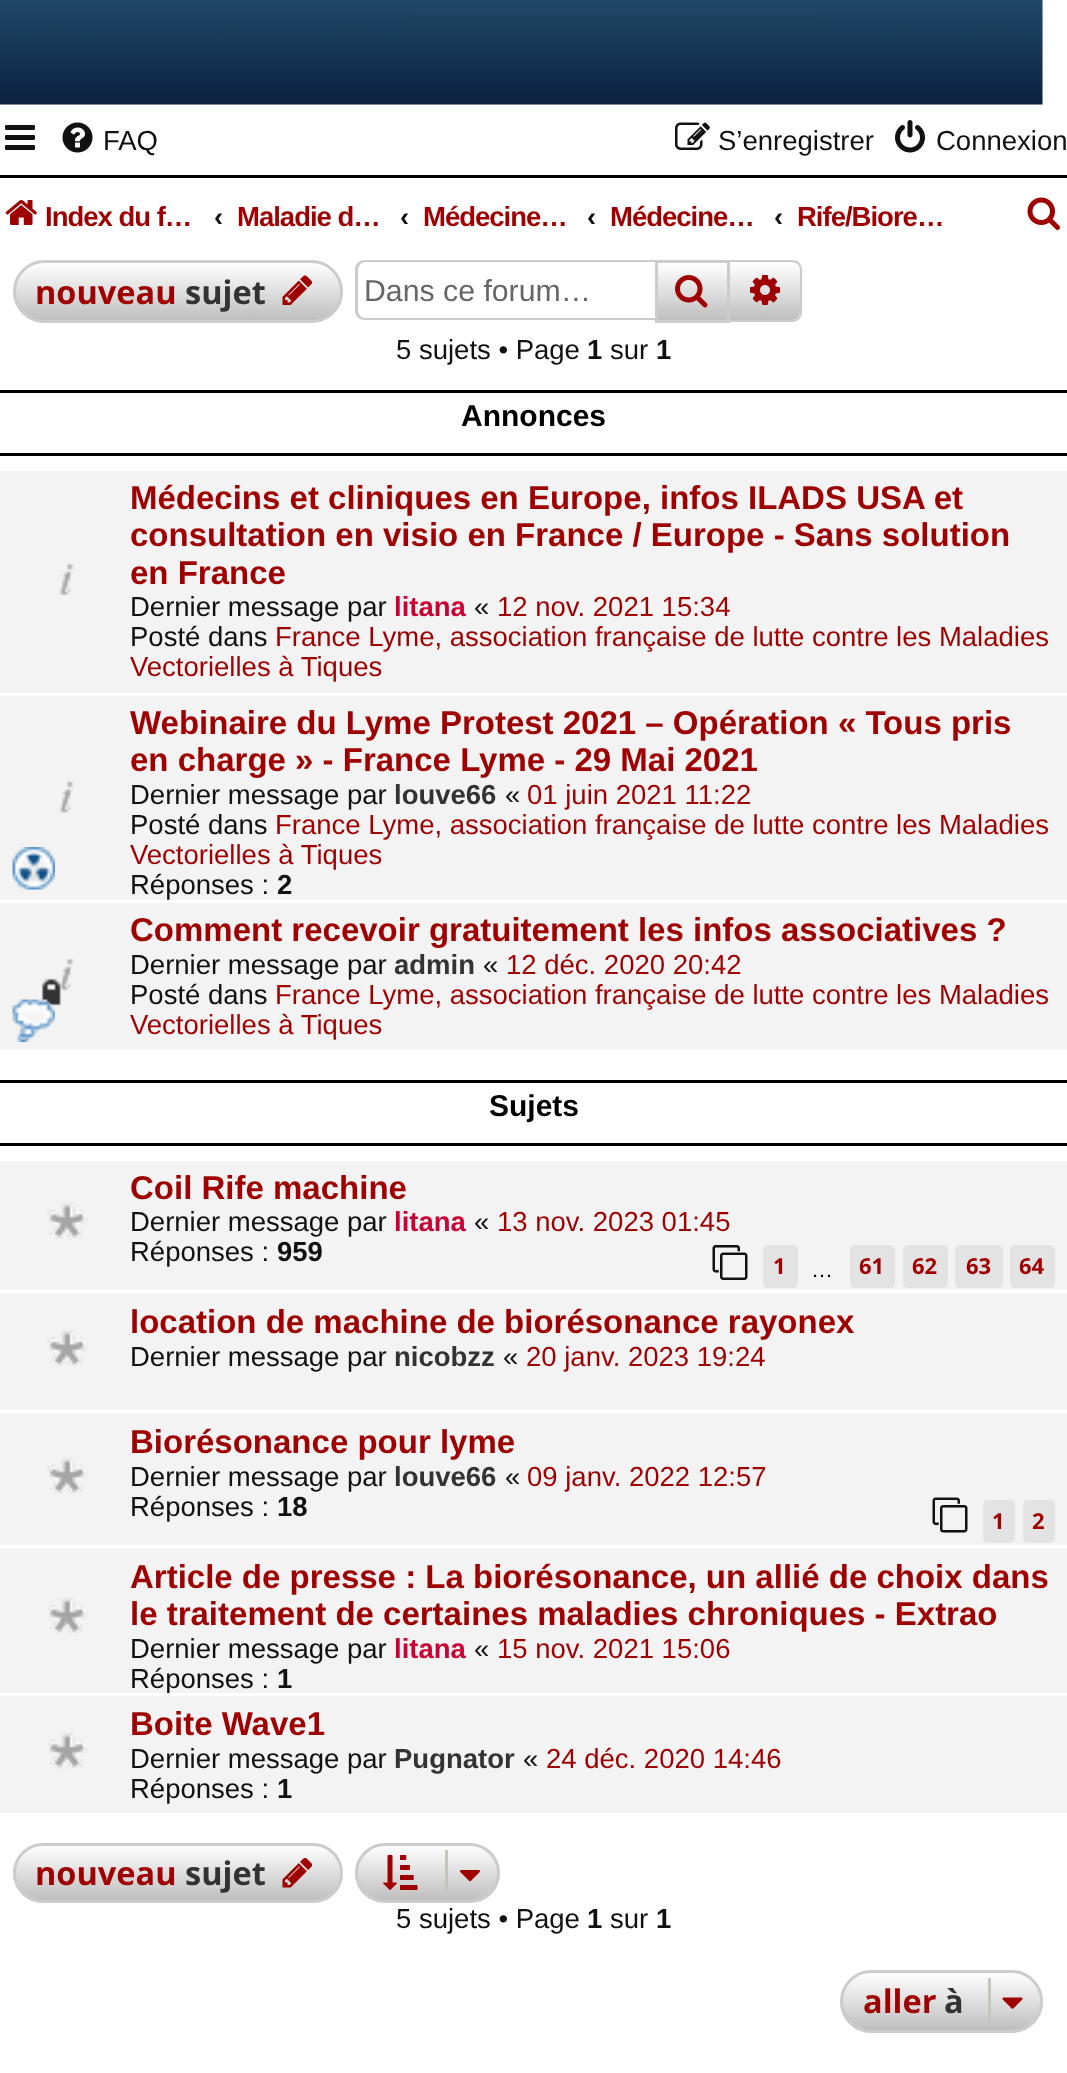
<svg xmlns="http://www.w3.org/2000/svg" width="1067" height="2073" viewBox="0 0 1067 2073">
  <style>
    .t1 { font: 27.5px Liberation Sans; fill: #111; }
    .t2 { font: bold 27.5px Liberation Sans; letter-spacing: -1px; fill: #9f0002; }
    .t3 { font: bold 27.5px Liberation Sans; fill: #111; }
    .t4 { font: bold 32.5px Open Sans; fill: #9f0002; }
    .t5 { font: bold 32.5px Open Sans; fill: #333; }
    .t6 { font: 30.25px Liberation Sans; fill: #666; }
    .t7 { font: bold 30px Liberation Sans; fill: #000; }
    .t8 { font: bold 33px Liberation Sans; fill: #9f0002; }
    .t9 { font: bold 27.5px Liberation Sans; fill: #c03; }
    .t10 { font: 27.5px Liberation Sans; fill: #9f0002; }
    .t11 { font: bold 27.5px Liberation Sans; fill: #333; }
    .t12 { font: bold 22px Open Sans; fill: #9f0002; }
    .t13 { font: 22px Liberation Sans; fill: #000; }
  </style>
  <defs>
    <clipPath id="clip1"><rect x="13" y="260" width="330" height="63" rx="31.5"/></clipPath>
    <linearGradient id="g1" gradientUnits="userSpaceOnUse" x1="178" y1="263" x2="178" y2="320"><stop offset="0" stop-color="#fff"/><stop offset="1" stop-color="#bfbfbf"/></linearGradient>
    <linearGradient id="g2" gradientUnits="userSpaceOnUse" x1="693" y1="263" x2="693" y2="320"><stop offset="0" stop-color="#fff"/><stop offset="1" stop-color="#bfbfbf"/></linearGradient>
    <linearGradient id="g3" gradientUnits="userSpaceOnUse" x1="765" y1="263" x2="765" y2="320"><stop offset="0" stop-color="#fff"/><stop offset="1" stop-color="#bfbfbf"/></linearGradient>
    <clipPath id="clip2"><rect x="0" y="1548" width="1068" height="145"/></clipPath>
    <clipPath id="clip3"><rect x="13" y="1843" width="330" height="60" rx="30"/></clipPath>
    <linearGradient id="g4" gradientUnits="userSpaceOnUse" x1="178" y1="1845" x2="178" y2="1900"><stop offset="0" stop-color="#fff"/><stop offset="1" stop-color="#bfbfbf"/></linearGradient>
    <clipPath id="clip4"><rect x="355" y="1843" width="145" height="60" rx="30"/></clipPath>
    <linearGradient id="g5" gradientUnits="userSpaceOnUse" x1="428" y1="1845" x2="428" y2="1900"><stop offset="0" stop-color="#fff"/><stop offset="1" stop-color="#bfbfbf"/></linearGradient>
    <clipPath id="clip5"><rect x="840" y="1970" width="203" height="63" rx="31.5"/></clipPath>
    <linearGradient id="g6" gradientUnits="userSpaceOnUse" x1="941" y1="1973" x2="941" y2="2030"><stop offset="0" stop-color="#fff"/><stop offset="1" stop-color="#bfbfbf"/></linearGradient>
  </defs>
  <rect width="100%" height="100%" fill="#fff"/>
  <rect x="0" y="0" width="1043" height="105" fill="#f3f3f3"/>
  <image x="0" y="0" width="1043" height="105" href="images/1.png"/>
  <image x="5" y="125" width="30" height="25" href="images/2.png"/>
  <image x="62" y="122" width="31" height="31" href="images/3.png"/>
  <text x="103" y="150" class="t1">FAQ</text>
  <image x="675" y="122" width="35" height="28" href="images/4.png"/>
  <text x="718" y="150" class="t1">S’enregistrer</text>
  <image x="895" y="120" width="30" height="33" href="images/5.png"/>
  <text x="936" y="150" class="t1">Connexion</text>
  <rect x="0" y="175" width="1067" height="3" fill="#000"/>
  <image x="5" y="199" width="32" height="26" href="images/6.png"/>
  <text x="45" y="226" class="t2">Index du f…</text>
  <text x="214" y="226" class="t3">‹</text>
  <text x="237" y="226" class="t2">Maladie d…</text>
  <text x="400" y="226" class="t3">‹</text>
  <text x="423" y="226" class="t2">Médecine…</text>
  <text x="587" y="226" class="t3">‹</text>
  <text x="610" y="226" class="t2">Médecine…</text>
  <text x="774" y="226" class="t3">‹</text>
  <text x="797" y="226" class="t2">Rife/Biore…</text>
  <image x="1027" y="197" width="33" height="33" href="images/7.png"/>
  <g clip-path="url(#clip1)">
    <rect x="13" y="263" width="330" height="57" fill="url(#g1)"/>
  </g>
  <rect x="14.5" y="261.5" width="327" height="60" rx="30" fill="none" stroke="#ccc" stroke-width="3"/>
  <text x="35" y="304" class="t4">nouveau</text>
  <text x="185" y="304" class="t5">sujet</text>
  <image x="282" y="275" width="31" height="30" href="images/8.png"/>
  <path d="M365 260H655V320H365C359 320 355 316 355 310V270C355 264 359 260 365 260ZM365 262H655V318H365C361 318 358 314 358 310V270C358 266 361 262 365 262Z" fill="#ccc" fill-rule="evenodd"/>
  <text x="364" y="301" class="t6">Dans ce forum…</text>
  <rect x="658" y="265" width="69" height="55" fill="url(#g2)"/>
  <rect x="656.5" y="261.5" width="72" height="60" fill="none" stroke="#ccc" stroke-width="3"/>
  <image x="675" y="275" width="33" height="33" href="images/9.png"/>
  <path d="M730 263H792C796.5 263 800 266.5 800 271V312C800 316.5 796.5 320 792 320H730Z" fill="url(#g3)"/>
  <path d="M730 260H792C798 260 802 264 802 270V312C802 318 798 322 792 322H730ZM730 262H792C797 262 800 266 800 270V312C800 317 797 320 792 320H730Z" fill="#ccc" fill-rule="evenodd"/>
  <image x="750" y="275" width="30" height="30" href="images/10.png"/>
  <text x="396" y="359" class="t1">5 sujets • Page</text>
  <text x="587" y="359" class="t3">1</text>
  <text x="610" y="359" class="t1">sur</text>
  <text x="656" y="359" class="t3">1</text>
  <rect x="0" y="390" width="1067" height="3" fill="#000"/>
  <rect x="0" y="453" width="1067" height="3" fill="#000"/>
  <text x="461" y="426" class="t7">Annonces</text>
  <rect x="0" y="471" width="1067" height="222" fill="#f3f3f3"/>
  <image x="59" y="564" width="15" height="32" href="images/11.png"/>
  <text x="130" y="509" class="t8">Médecins et cliniques en Europe, infos ILADS USA et</text>
  <text x="130" y="546" class="t8">consultation en visio en France / Europe - Sans solution</text>
  <text x="130" y="584" class="t8">en France</text>
  <text x="130" y="616" class="t1">Dernier message par</text>
  <text x="394" y="616" class="t9">litana</text>
  <text x="474" y="616" class="t1">«</text>
  <text x="497" y="616" class="t10">12 nov. 2021 15:34</text>
  <text x="130" y="646" class="t1">Posté dans</text>
  <text x="275" y="646" class="t10">France Lyme, association française de lutte contre les Maladies</text>
  <text x="130" y="676" class="t10">Vectorielles à Tiques</text>
  <rect x="0" y="696" width="1067" height="204" fill="#f3f3f3"/>
  <image x="59" y="781" width="15" height="32" href="images/12.png"/>
  <image x="12" y="847" width="43" height="43" href="images/13.png"/>
  <text x="130" y="734" class="t8">Webinaire du Lyme Protest 2021 – Opération « Tous pris</text>
  <text x="130" y="771" class="t8">en charge » - France Lyme - 29 Mai 2021</text>
  <text x="130" y="804" class="t1">Dernier message par</text>
  <text x="394" y="804" class="t11">louve66</text>
  <text x="505" y="804" class="t1">«</text>
  <text x="527" y="804" class="t10">01 juin 2021 11:22</text>
  <text x="130" y="834" class="t1">Posté dans</text>
  <text x="275" y="834" class="t10">France Lyme, association française de lutte contre les Maladies</text>
  <text x="130" y="864" class="t10">Vectorielles à Tiques</text>
  <text x="130" y="894" class="t1">Réponses :</text>
  <text x="277" y="894" class="t3">2</text>
  <rect x="0" y="903" width="1067" height="147" fill="#f3f3f3"/>
  <image x="41" y="959" width="33" height="47" href="images/14.png"/>
  <image x="12" y="999" width="43" height="43" href="images/15.png"/>
  <text x="130" y="941" class="t8">Comment recevoir gratuitement les infos associatives ?</text>
  <text x="130" y="974" class="t1">Dernier message par</text>
  <text x="394" y="974" class="t11">admin</text>
  <text x="483" y="974" class="t1">«</text>
  <text x="506" y="974" class="t10">12 déc. 2020 20:42</text>
  <text x="130" y="1004" class="t1">Posté dans</text>
  <text x="275" y="1004" class="t10">France Lyme, association française de lutte contre les Maladies</text>
  <text x="130" y="1034" class="t10">Vectorielles à Tiques</text>
  <rect x="0" y="1080" width="1067" height="3" fill="#000"/>
  <rect x="0" y="1143" width="1067" height="3" fill="#000"/>
  <text x="489" y="1116" class="t7">Sujets</text>
  <rect x="0" y="1161" width="1067" height="129" fill="#f3f3f3"/>
  <image x="47" y="1202" width="41" height="38" href="images/16.png"/>
  <text x="130" y="1199" class="t8">Coil Rife machine</text>
  <text x="130" y="1231" class="t1">Dernier message par</text>
  <text x="394" y="1231" class="t9">litana</text>
  <text x="474" y="1231" class="t1">«</text>
  <text x="497" y="1231" class="t10">13 nov. 2023 01:45</text>
  <text x="130" y="1261" class="t1">Réponses :</text>
  <text x="277" y="1261" class="t3">959</text>
  <image x="712" y="1245" width="36" height="35" href="images/17.png"/>
  <rect x="763" y="1245" width="35" height="43" rx="5" fill="#e3e3e3"/>
  <text x="773" y="1274" class="t12">1</text>
  <rect x="850" y="1245" width="45" height="43" rx="5" fill="#e3e3e3"/>
  <text x="859" y="1274" class="t12">61</text>
  <rect x="903" y="1245" width="45" height="43" rx="5" fill="#e3e3e3"/>
  <text x="912" y="1274" class="t12">62</text>
  <rect x="955" y="1245" width="48" height="43" rx="5" fill="#e3e3e3"/>
  <text x="966" y="1274" class="t12">63</text>
  <rect x="1010" y="1245" width="45" height="43" rx="5" fill="#e3e3e3"/>
  <text x="1019" y="1274" class="t12">64</text>
  <text x="811" y="1277" class="t13">…</text>
  <rect x="0" y="1293" width="1067" height="117" fill="#f3f3f3"/>
  <image x="47" y="1329" width="41" height="38" href="images/18.png"/>
  <text x="130" y="1333" class="t8">location de machine de biorésonance rayonex</text>
  <text x="130" y="1366" class="t1">Dernier message par</text>
  <text x="394" y="1366" class="t11">nicobzz</text>
  <text x="503" y="1366" class="t1">«</text>
  <text x="526" y="1366" class="t10">20 janv. 2023 19:24</text>
  <rect x="0" y="1413" width="1067" height="132" fill="#f3f3f3"/>
  <image x="47" y="1457" width="41" height="38" href="images/16.png"/>
  <text x="130" y="1453" class="t8">Biorésonance pour lyme</text>
  <text x="130" y="1486" class="t1">Dernier message par</text>
  <text x="394" y="1486" class="t11">louve66</text>
  <text x="505" y="1486" class="t1">«</text>
  <text x="527" y="1486" class="t10">09 janv. 2022 12:57</text>
  <text x="130" y="1516" class="t1">Réponses :</text>
  <text x="277" y="1516" class="t3">18</text>
  <image x="932" y="1497" width="36" height="36" href="images/19.png"/>
  <rect x="983" y="1500" width="32" height="43" rx="5" fill="#e3e3e3"/>
  <text x="992" y="1529" class="t12">1</text>
  <rect x="1023" y="1500" width="32" height="43" rx="5" fill="#e3e3e3"/>
  <text x="1032" y="1529" class="t12">2</text>
  <rect x="0" y="1548" width="1067" height="145" fill="#f3f3f3"/>
  <image x="47" y="1597" width="41" height="38" href="images/16.png"/>
  <text x="130" y="1588" class="t8">Article de presse : La biorésonance, un allié de choix dans</text>
  <text x="130" y="1625" class="t8">le traitement de certaines maladies chroniques - Extrao</text>
  <text x="130" y="1658" class="t1">Dernier message par</text>
  <text x="394" y="1658" class="t9">litana</text>
  <text x="474" y="1658" class="t1">«</text>
  <text x="497" y="1658" class="t10">15 nov. 2021 15:06</text>
  <g clip-path="url(#clip2)">
    <text x="130" y="1688" class="t1">Réponses :</text>
  </g>
  <text x="277" y="1688" class="t3">1</text>
  <rect x="0" y="1696" width="1067" height="117" fill="#f3f3f3"/>
  <image x="47" y="1732" width="41" height="38" href="images/16.png"/>
  <text x="130" y="1735" class="t8">Boite Wave1</text>
  <text x="130" y="1768" class="t1">Dernier message par</text>
  <text x="394" y="1768" class="t11">Pugnator</text>
  <text x="523" y="1768" class="t1">«</text>
  <text x="546" y="1768" class="t10">24 déc. 2020 14:46</text>
  <text x="130" y="1798" class="t1">Réponses :</text>
  <text x="277" y="1798" class="t3">1</text>
  <g clip-path="url(#clip3)">
    <rect x="13" y="1845" width="330" height="55" fill="url(#g4)"/>
  </g>
  <rect x="14.5" y="1844.5" width="327" height="57" rx="28.5" fill="none" stroke="#ccc" stroke-width="3"/>
  <text x="35" y="1885" class="t4">nouveau</text>
  <text x="185" y="1885" class="t5">sujet</text>
  <image x="282" y="1858" width="30" height="30" href="images/20.png"/>
  <g clip-path="url(#clip4)">
    <rect x="355" y="1845" width="145" height="55" fill="url(#g5)"/>
  </g>
  <rect x="356.5" y="1844.5" width="142" height="57" rx="28.5" fill="none" stroke="#ccc" stroke-width="3"/>
  <image x="383" y="1855" width="35" height="35" href="images/21.png"/>
  <rect x="445" y="1850" width="3" height="45" fill="#c7c3bf"/>
  <image x="460" y="1870" width="20" height="12" href="images/22.png"/>
  <text x="396" y="1928" class="t1">5 sujets • Page</text>
  <text x="587" y="1928" class="t3">1</text>
  <text x="610" y="1928" class="t1">sur</text>
  <text x="656" y="1928" class="t3">1</text>
  <g clip-path="url(#clip5)">
    <rect x="840" y="1973" width="203" height="57" fill="url(#g6)"/>
  </g>
  <rect x="841.5" y="1971.5" width="200" height="60" rx="30" fill="none" stroke="#ccc" stroke-width="3"/>
  <text x="863" y="2013" class="t4">aller</text>
  <text x="944" y="2013" class="t5">à</text>
  <rect x="988" y="1978" width="3" height="45" fill="#c7c3bf"/>
  <image x="1002" y="1997" width="21" height="12" href="images/23.png"/>
</svg>
